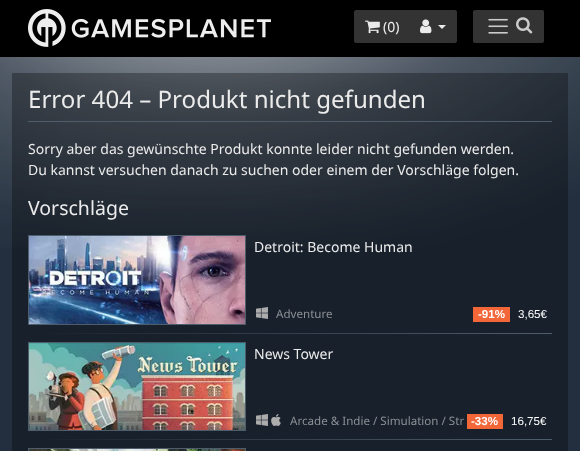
<svg xmlns="http://www.w3.org/2000/svg" width="580" height="451" viewBox="0 0 580 451">
  <style>
    .t1 { font: 14px Noto Sans; fill: #ebebeb; }
    .t2 { font: 24.1px Noto Sans; fill: #ebebeb; }
    .t3 { font: 19.5px Noto Sans; fill: #ebebeb; }
    .t4 { font: 11.6px Noto Sans; fill: #8c9095; }
    .t5 { font: bold 11.6px Liberation Sans; fill: #fff; }
    .t6 { font: 11.6px Liberation Sans; fill: #fff; }
  </style>
  <defs>
    <linearGradient id="g1" gradientUnits="userSpaceOnUse" x1="552" y1="334" x2="28" y2="334"><stop offset="0" stop-color="#4e5d6c"/><stop offset="1" stop-color="#19212b"/></linearGradient>
    <linearGradient id="g2" gradientUnits="userSpaceOnUse" x1="552" y1="440" x2="28" y2="440"><stop offset="0" stop-color="#4e5d6c"/><stop offset="1" stop-color="#19212b"/></linearGradient>
  </defs>
  <rect width="100%" height="100%" fill="#232f3e"/>
  <image x="0" y="57" width="580" height="191" href="images/1.png"/>
  <rect x="0" y="0" width="580" height="57" fill="#000"/>
  <image x="28" y="9" width="243" height="38" href="images/2.png"/>
  <path d="M356 10H410V43H356C355 43 354 42 354 41V12C354 11 355 10 356 10Z" fill="#333"/>
  <image x="365" y="20" width="15" height="14" href="images/3.png"/>
  <text x="383" y="32" class="t1">(0)</text>
  <path d="M409 10H455C456 10 457 11 457 12V41C457 42 456 43 455 43H409Z" fill="#333"/>
  <image x="420" y="19" width="12" height="15" href="images/4.png"/>
  <path d="M438 25H446L442 29Z" fill="#ebebeb"/>
  <rect x="473" y="10" width="71" height="33" rx="2" fill="#333"/>
  <image x="488" y="18" width="20" height="16" href="images/5.png"/>
  <image x="516" y="17" width="17" height="17" href="images/6.png"/>
  <rect x="12" y="73" width="556" height="378" fill="#0000004d"/>
  <rect x="28" y="121" width="524" height="1" fill="#4e5d6c"/>
  <text x="28" y="108" class="t2">Error 404 – Produkt nicht gefunden</text>
  <text x="28" y="154" class="t1">Sorry aber das gewünschte Produkt konnte leider nicht gefunden werden.</text>
  <text x="28" y="175" class="t1">Du kannst versuchen danach zu suchen oder einem der Vorschläge folgen.</text>
  <text x="28" y="215" class="t3">Vorschläge</text>
  <rect x="28.5" y="235.5" width="217" height="89" fill="none" stroke="#4e5d6c"/>
  <image x="29" y="236" width="216" height="88" href="images/7.png"/>
  <text x="254" y="252" class="t1">Detroit: Become Human</text>
  <image x="256" y="307" width="12" height="12" href="images/8.png"/>
  <text x="276" y="318" class="t4">Adventure</text>
  <rect x="473" y="307" width="37" height="15" fill="#f26638"/>
  <text x="478" y="318" class="t5">-91%</text>
  <text x="518" y="318" class="t6">3,65€</text>
  <rect x="50" y="333" width="502" height="1" fill="url(#g1)"/>
  <rect x="28.5" y="342.5" width="217" height="88" fill="none" stroke="#4e5d6c"/>
  <image x="29" y="343" width="216" height="87" href="images/9.png"/>
  <text x="254" y="359" class="t1">News Tower</text>
  <image x="256" y="414" width="12" height="12" href="images/8.png"/>
  <image x="271" y="414" width="10" height="12" href="images/10.png"/>
  <text x="290" y="425" class="t4">Arcade &amp; Indie / Simulation / Str</text>
  <rect x="467" y="414" width="36" height="15" fill="#f26638"/>
  <text x="471" y="425" class="t5">-33%</text>
  <text x="511" y="425" class="t6">16,75€</text>
  <rect x="50" y="439" width="502" height="1" fill="url(#g2)"/>
  <rect x="28.5" y="448.5" width="217" height="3" fill="none" stroke="#4e5d6c"/>
  <image x="29" y="449" width="216" height="2" href="images/11.png"/>
</svg>
